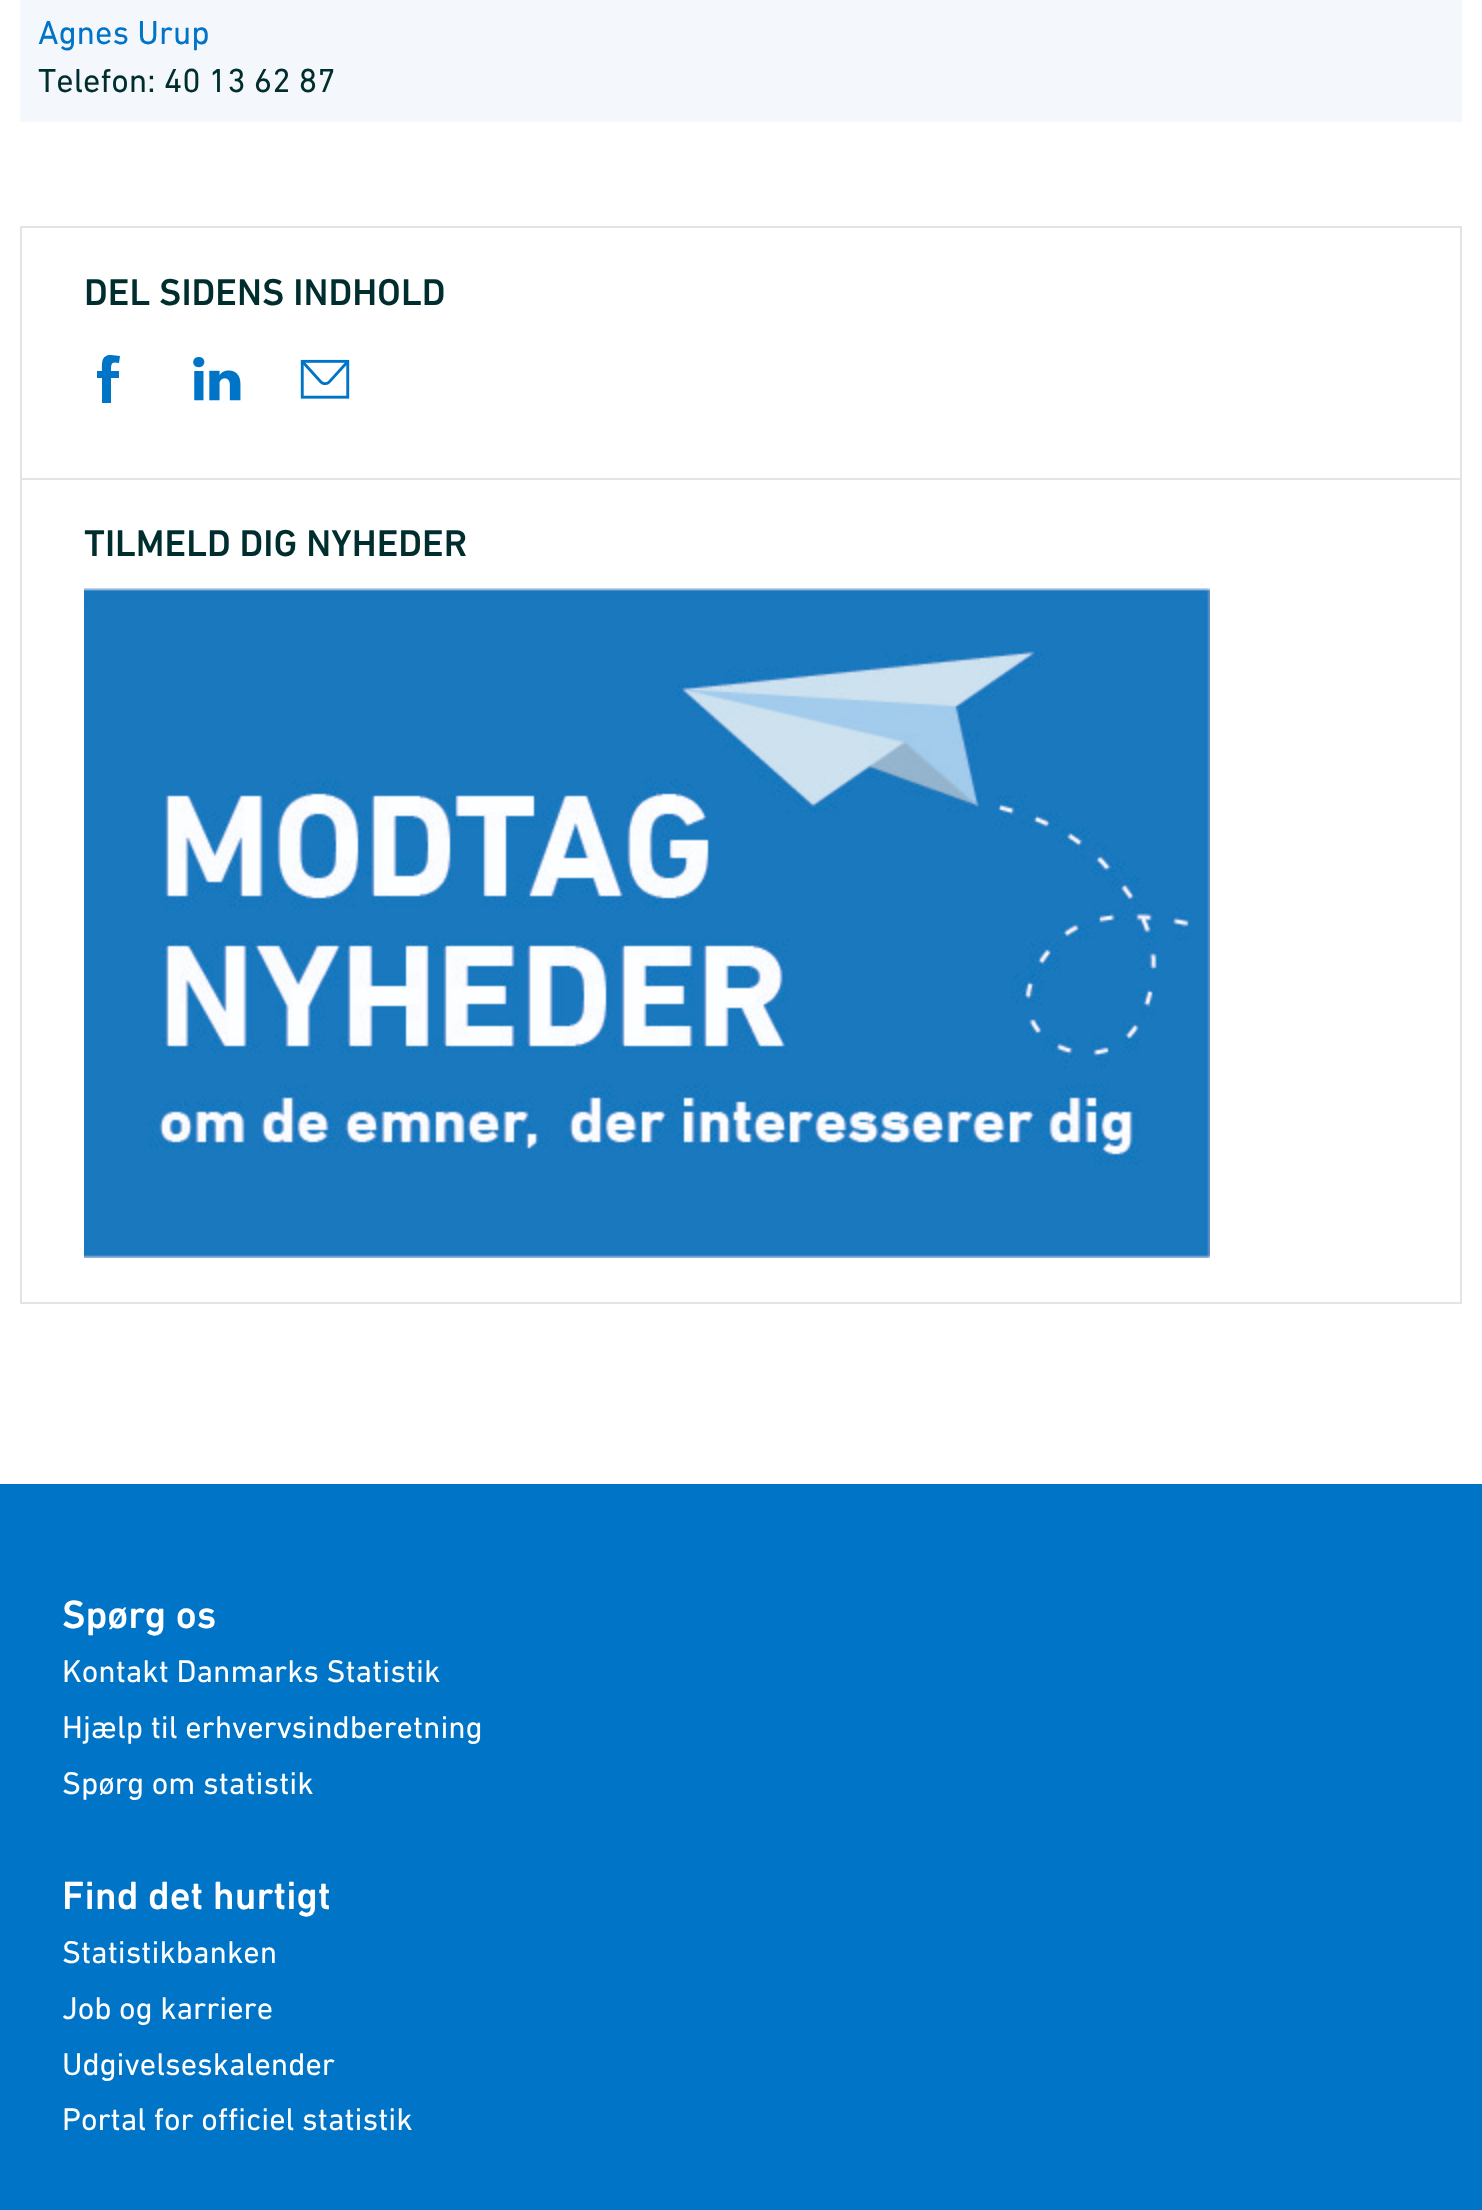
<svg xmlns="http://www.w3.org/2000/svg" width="1482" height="2210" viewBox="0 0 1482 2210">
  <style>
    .t1 { font: 34px DIN Next; fill: #0074c6; }
    .t2 { font: 34px DIN Next; fill: #002e2e; }
    .t3 { font: 500 38px DIN Next; fill: #002e2e; }
    .t4 { font: 500 40px DIN Next; fill: #fff; }
    .t5 { font: 32px DIN Next; fill: #fff; }
  </style>
  <rect width="100%" height="100%" fill="#fff"/>
  <rect x="20" y="0" width="1442" height="122" fill="#f4f7fc"/>
  <text x="38" y="44" class="t1">Agnes Urup</text>
  <text x="38" y="92" class="t2">Telefon: 40 13 62 87</text>
  <rect x="21" y="227" width="1440" height="252" fill="none" stroke="#e4e4e4" stroke-width="2"/>
  <text x="84" y="305" class="t3">DEL SIDENS INDHOLD</text>
  <path d="M97 371H102C102 363 101 355 111 355L120 356L119 363C111 361 111 364 111 371H119V378H111V403H102V378H97Z" fill="#0074c6"/>
  <image x="193" y="357" width="48" height="44" href="images/1.png"/>
  <image x="300" y="359" width="50" height="40" href="images/2.png"/>
  <rect x="21" y="479" width="1440" height="824" fill="none" stroke="#e4e4e4" stroke-width="2"/>
  <text x="84" y="556" class="t3">TILMELD DIG NYHEDER</text>
  <image x="84" y="588" width="1126" height="670" href="images/3.png"/>
  <rect x="0" y="1484" width="1482" height="726" fill="#0074c6"/>
  <text x="62" y="1628" class="t4">Spørg os</text>
  <text x="62" y="1682" class="t5">Kontakt Danmarks Statistik</text>
  <text x="62" y="1738" class="t5">Hjælp til erhvervsindberetning</text>
  <text x="62" y="1794" class="t5">Spørg om statistik</text>
  <text x="62" y="1909" class="t4">Find det hurtigt</text>
  <text x="62" y="1963" class="t5">Statistikbanken</text>
  <text x="62" y="2019" class="t5">Job og karriere</text>
  <text x="62" y="2075" class="t5">Udgivelseskalender</text>
  <text x="62" y="2130" class="t5">Portal for officiel statistik</text>
</svg>
